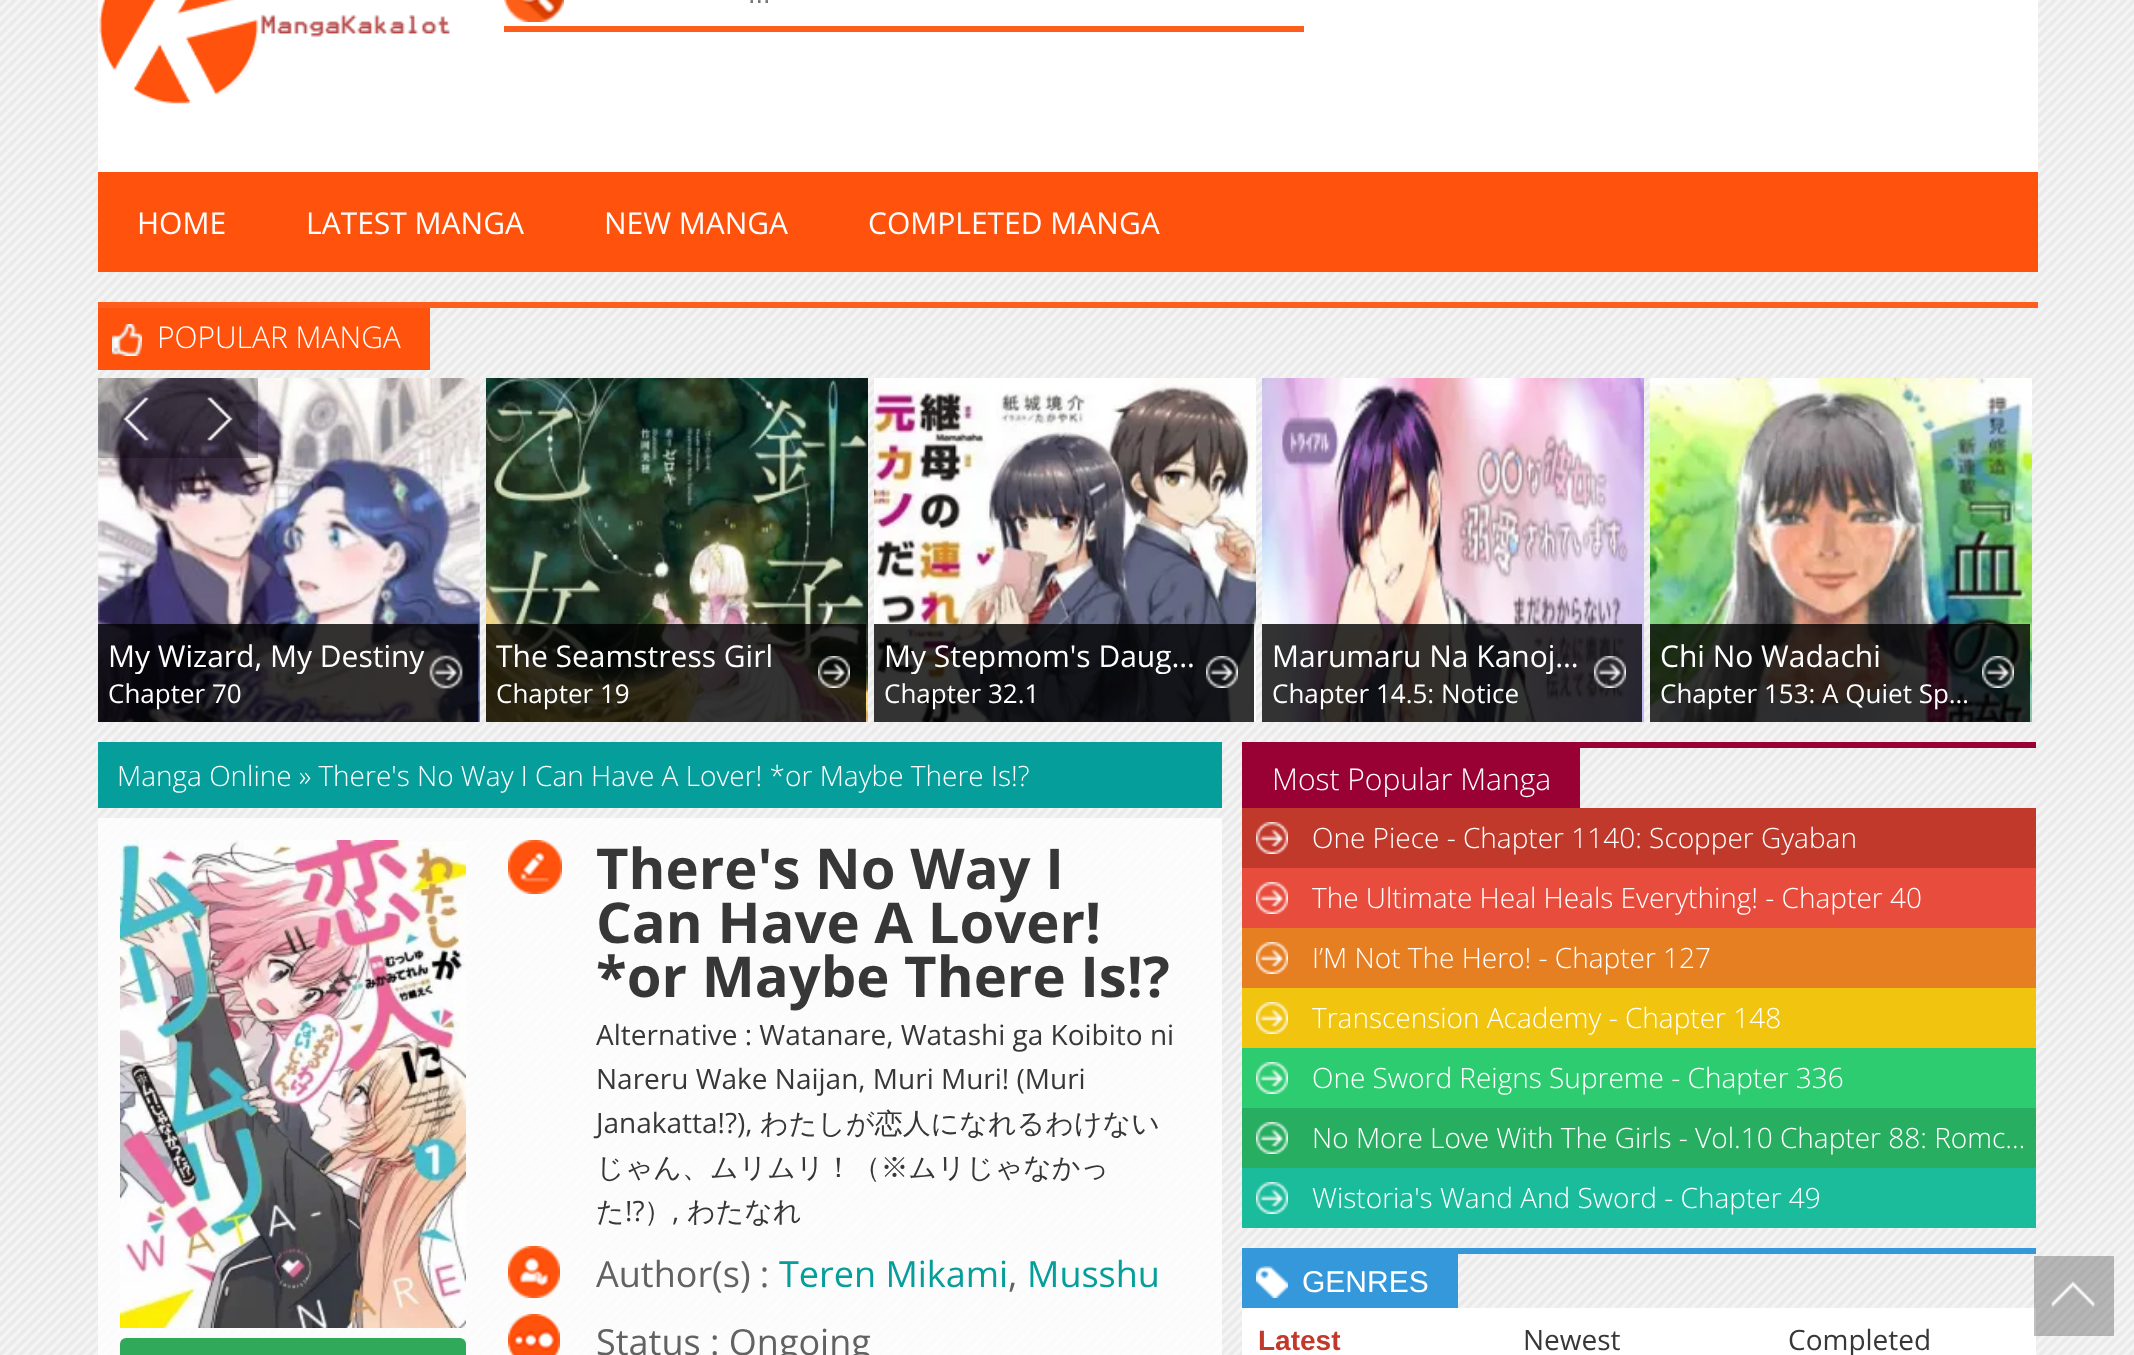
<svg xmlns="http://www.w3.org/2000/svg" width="2134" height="1355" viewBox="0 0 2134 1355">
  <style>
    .t1 { font: 27px Liberation Sans; fill: #757575; }
    .t2 { font: 30px Open Sans; fill: #fff; }
    .t3 { font: 300 30px Open Sans; fill: #fff; }
    .t4 { font: 26px Open Sans; fill: #fff; }
    .t5 { font: 300 28px Open Sans; fill: #fff; }
    .t6 { font: bold 56.25px Open Sans; fill: #373737; }
    .t7 { font: 28px Open Sans; fill: #373737; }
    .t8 { font: 500 28px WenQuanYi Zen Hei; fill: #373737; }
    .t9 { font: 36px Open Sans; fill: #626262; }
    .t10 { font: 36px Open Sans; fill: #059e9a; }
    .t11 { font: 30px Liberation Sans; fill: #fff; }
    .t12 { font: bold 28px Liberation Sans; fill: #c0392b; }
  </style>
  <defs>
    <clipPath id="clip1"><rect x="108" y="634" width="324" height="40"/></clipPath>
    <clipPath id="clip2"><rect x="884" y="634" width="324" height="40"/></clipPath>
    <clipPath id="clip3"><rect x="1272" y="634" width="324" height="40"/></clipPath>
  </defs>
  <rect width="100%" height="100%" fill="#fff"/>
  <image x="0" y="0" width="2134" height="1355" href="images/1.png"/>
  <rect x="98" y="0" width="1940" height="172" fill="#fff"/>
  <image x="99" y="0" width="351" height="104" href="images/2.png"/>
  <image x="504" y="0" width="60" height="22" href="images/3.png"/>
  <rect x="504" y="26" width="800" height="6" fill="#fd5e1e"/>
  <text x="748" y="3" class="t1">...</text>
  <rect x="98" y="172" width="1940" height="100" fill="#ff530d"/>
  <text x="137" y="234" class="t2">HOME</text>
  <text x="306" y="234" class="t2">LATEST MANGA</text>
  <text x="604" y="234" class="t2">NEW MANGA</text>
  <text x="868" y="234" class="t2">COMPLETED MANGA</text>
  <rect x="98" y="302" width="1940" height="6" fill="#fd5e1e"/>
  <rect x="98" y="308" width="332" height="62" fill="#ff530d"/>
  <image x="112" y="324" width="30" height="32" href="images/4.png"/>
  <text x="157" y="348" class="t3">POPULAR MANGA</text>
  <image x="98" y="378" width="382" height="344" href="images/7.png"/>
  <image x="98" y="378" width="80" height="80" href="images/5.png"/>
  <image x="178" y="378" width="80" height="80" href="images/6.png"/>
  <rect x="98" y="624" width="380" height="98" fill="#000000cc"/>
  <image x="429" y="655" width="34" height="34" href="images/8.png"/>
  <g clip-path="url(#clip1)">
    <text x="108" y="667" class="t2">My Wizard, My Destiny</text>
  </g>
  <text x="108" y="703" class="t4">Chapter 70</text>
  <image x="486" y="378" width="382" height="344" href="images/9.png"/>
  <rect x="486" y="624" width="380" height="98" fill="#000000cc"/>
  <image x="818" y="656" width="32" height="32" href="images/10.png"/>
  <text x="496" y="667" class="t2">The Seamstress Girl</text>
  <text x="496" y="703" class="t4">Chapter 19</text>
  <image x="874" y="378" width="382" height="344" href="images/11.png"/>
  <rect x="874" y="624" width="380" height="98" fill="#000000cc"/>
  <image x="1206" y="656" width="32" height="32" href="images/12.png"/>
  <g clip-path="url(#clip2)">
    <text x="884" y="667" class="t2">My Stepmom's Daug…</text>
  </g>
  <text x="884" y="703" class="t4">Chapter 32.1</text>
  <image x="1262" y="378" width="382" height="344" href="images/13.png"/>
  <rect x="1262" y="624" width="380" height="98" fill="#000000cc"/>
  <image x="1594" y="656" width="32" height="32" href="images/14.png"/>
  <g clip-path="url(#clip3)">
    <text x="1272" y="667" class="t2">Marumaru Na Kanoj…</text>
  </g>
  <text x="1272" y="703" class="t4">Chapter 14.5: Notice</text>
  <image x="1650" y="378" width="382" height="344" href="images/15.png"/>
  <rect x="1650" y="624" width="380" height="98" fill="#000000cc"/>
  <image x="1982" y="656" width="32" height="32" href="images/16.png"/>
  <text x="1660" y="667" class="t2">Chi No Wadachi</text>
  <text x="1660" y="703" class="t4">Chapter 153: A Quiet Sp…</text>
  <rect x="98" y="742" width="1124" height="66" fill="#059e9a"/>
  <text x="117" y="786" class="t5">Manga Online » There's No Way I Can Have A Lover! *or Maybe There Is!?</text>
  <rect x="98" y="818" width="1124" height="537" fill="#ffffffcc"/>
  <image x="120" y="840" width="346" height="488" href="images/17.png"/>
  <rect x="120" y="1338" width="346" height="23" rx="6" fill="#31a95b"/>
  <image x="508" y="840" width="54" height="54" href="images/18.png"/>
  <text x="596" y="889" class="t6">There's No Way I</text>
  <text x="596" y="943" class="t6">Can Have A Lover!</text>
  <text x="596" y="997" class="t6">*or Maybe There Is!?</text>
  <text x="596" y="1045" class="t7">Alternative : Watanare, Watashi ga Koibito ni</text>
  <text x="596" y="1089" class="t7">Nareru Wake Naijan, Muri Muri! (Muri</text>
  <text x="596" y="1133" class="t7">Janakatta!?),</text>
  <text x="760" y="1133" class="t8">わたしが恋人になれるわけない</text>
  <text x="596" y="1177" class="t8">じゃん、ムリムリ！（※ムリじゃなかっ</text>
  <text x="596" y="1221" class="t8">た</text>
  <text x="625" y="1221" class="t7">!?</text>
  <text x="644" y="1221" class="t8">）</text>
  <text x="672" y="1221" class="t7">,</text>
  <text x="687" y="1221" class="t8">わたなれ</text>
  <image x="508" y="1246" width="52" height="52" href="images/19.png"/>
  <text x="596" y="1287" class="t9">Author(s) :</text>
  <text x="779" y="1287" class="t10">Teren Mikami</text>
  <text x="1008" y="1287" class="t9">,</text>
  <text x="1027" y="1287" class="t10">Musshu</text>
  <image x="508" y="1314" width="52" height="41" href="images/20.png"/>
  <text x="596" y="1355" class="t9">Status : Ongoing</text>
  <rect x="1242" y="742" width="794" height="6" fill="#903"/>
  <rect x="1242" y="748" width="338" height="60" fill="#903"/>
  <text x="1272" y="790" class="t3">Most Popular Manga</text>
  <rect x="1242" y="808" width="794" height="60" fill="#c0392b"/>
  <image x="1256" y="822" width="32" height="32" href="images/21.png"/>
  <text x="1312" y="848" class="t5">One Piece - Chapter 1140: Scopper Gyaban</text>
  <rect x="1242" y="868" width="794" height="60" fill="#e84c3d"/>
  <image x="1256" y="882" width="32" height="32" href="images/22.png"/>
  <text x="1312" y="908" class="t5">The Ultimate Heal Heals Everything! - Chapter 40</text>
  <rect x="1242" y="928" width="794" height="60" fill="#e67e22"/>
  <image x="1256" y="942" width="32" height="32" href="images/23.png"/>
  <text x="1312" y="968" class="t5">I’M Not The Hero! - Chapter 127</text>
  <rect x="1242" y="988" width="794" height="60" fill="#f1c40f"/>
  <image x="1256" y="1002" width="32" height="32" href="images/24.png"/>
  <text x="1312" y="1028" class="t5">Transcension Academy - Chapter 148</text>
  <rect x="1242" y="1048" width="794" height="60" fill="#2ecc71"/>
  <image x="1256" y="1062" width="32" height="32" href="images/25.png"/>
  <text x="1312" y="1088" class="t5">One Sword Reigns Supreme - Chapter 336</text>
  <rect x="1242" y="1108" width="794" height="60" fill="#27ae60"/>
  <image x="1256" y="1122" width="32" height="32" href="images/26.png"/>
  <text x="1312" y="1148" class="t5">No More Love With The Girls - Vol.10 Chapter 88: Romc…</text>
  <rect x="1242" y="1168" width="794" height="60" fill="#1abc9c"/>
  <image x="1256" y="1182" width="32" height="32" href="images/27.png"/>
  <text x="1312" y="1208" class="t5">Wistoria's Wand And Sword - Chapter 49</text>
  <rect x="1242" y="1248" width="794" height="6" fill="#3498db"/>
  <rect x="1242" y="1254" width="216" height="54" fill="#3498db"/>
  <image x="1256" y="1266" width="32" height="32" href="images/28.png"/>
  <text x="1302" y="1292" class="t11">GENRES</text>
  <rect x="1242" y="1308" width="794" height="47" fill="#fff"/>
  <text x="1258" y="1350" class="t12">Latest</text>
  <text x="1523" y="1350" class="t7">Newest</text>
  <text x="1788" y="1350" class="t7">Completed</text>
  <image x="2034" y="1256" width="80" height="80" href="images/29.png"/>
</svg>
